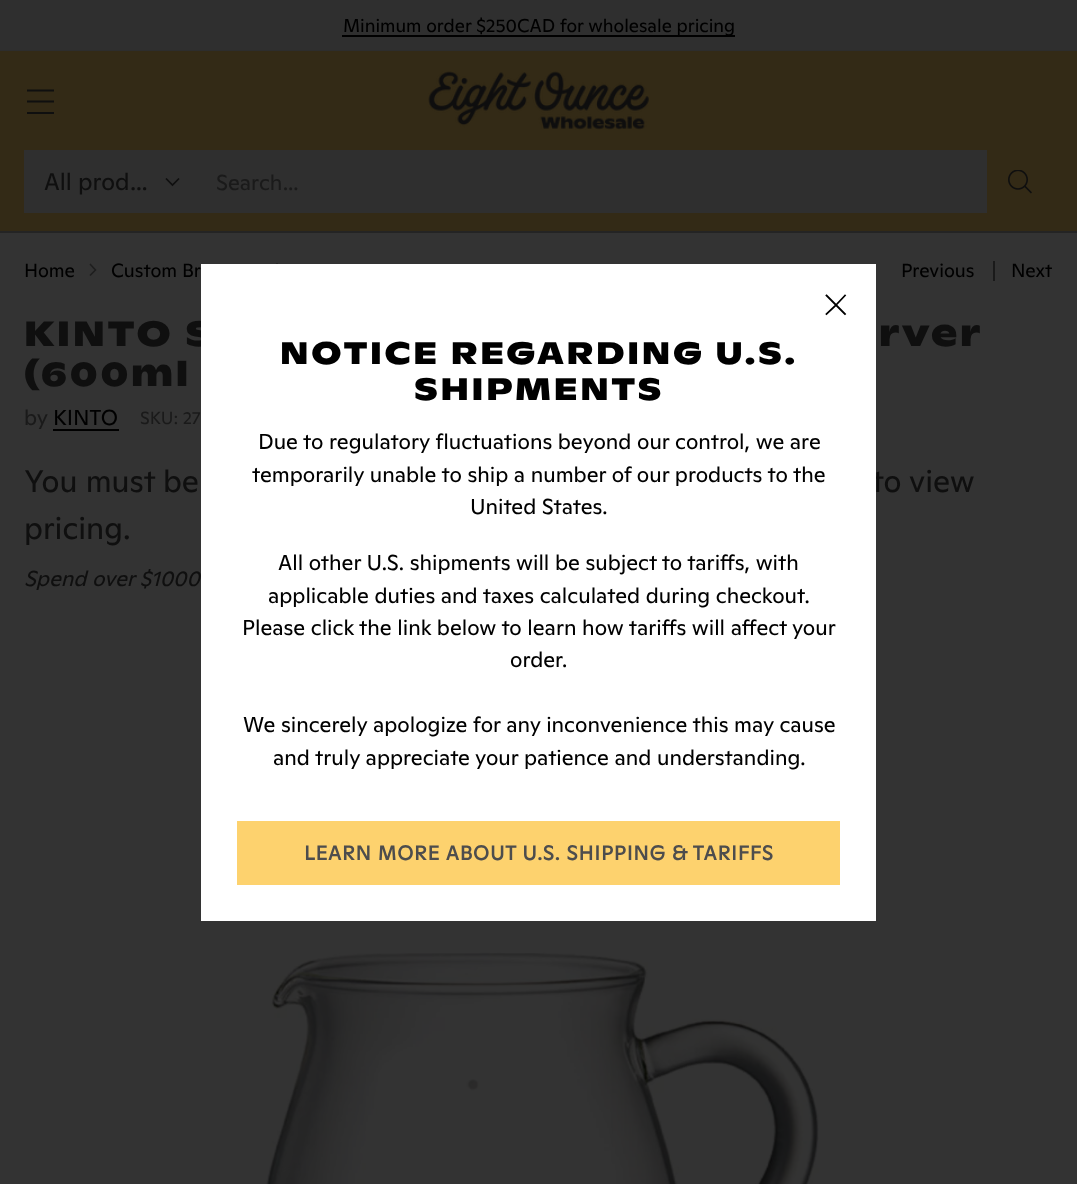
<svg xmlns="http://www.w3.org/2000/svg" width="1077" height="1184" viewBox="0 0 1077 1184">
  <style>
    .t1 { font: 18.5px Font; fill: #000; }
    .t2 { font: 24px Font; fill: #0f0f0f; }
    .t3 { font: 21.6px Font; fill: #1a1a1a; }
    .t4 { font: 19px Font; fill: #000; }
    .t5 { font: bold 35px Font; letter-spacing: 2.7px; fill: #0f0f0f; }
    .t6 { font: 21.6px Font; fill: #000; }
    .t7 { font: 17.5px Font; fill: #1a1a1a; }
    .t8 { font: 31.25px Font; fill: #0f0f0f; }
    .t9 { font: italic 21.6px Font; fill: #0f0f0f; }
    .t10 { font: bold 31px Font; letter-spacing: 2.7px; fill: #000; }
    .t11 { font: bold 20.1px 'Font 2'; letter-spacing: 0.8px; fill: #4d4d4d; }
  </style>
  <rect width="100%" height="100%" fill="#333"/>
  <rect x="0" y="0" width="1077" height="50" fill="#2f2f2f"/>
  <rect x="342" y="35" width="393" height="2" fill="#000"/>
  <text x="343" y="32" class="t1">Minimum order $250CAD for wholesale pricing</text>
  <rect x="0" y="231" width="1077" height="2" fill="#292929"/>
  <rect x="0" y="51" width="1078" height="181" fill="none" stroke="#0000001a" stroke-width="2"/>
  <rect x="0" y="51" width="1077" height="180" fill="#332a16"/>
  <path d="M27 101.5H54M27 90.5H54M27 113H54" fill="none" stroke="#0f0f0f" stroke-width="1.9"/>
  <image x="428" y="71" width="221" height="59" href="images/1.png"/>
  <rect x="25" y="151" width="1027" height="61" fill="none" stroke="#2f2f2f" stroke-width="2"/>
  <rect x="26" y="152" width="961" height="59" fill="#2f2f2f"/>
  <text x="44" y="190" class="t2">All prod…</text>
  <path d="M166 178.5L172.5 185L179 178.5" fill="none" stroke="#0f0f0f" stroke-width="1.7"/>
  <text x="216" y="190" class="t3">Search…</text>
  <rect x="987" y="150" width="66" height="63" fill="#332a16"/>
  <image x="1008" y="170" width="24" height="24" href="images/2.png"/>
  <text x="24" y="277" class="t4">Home</text>
  <path d="M90 275.5L95.5 270L90 264" fill="none" stroke="#1e1e1e" stroke-width="1.5"/>
  <text x="111" y="277" class="t4">Custom Br</text>
  <path d="M276.5 274.5L282 269L276.5 263.5" fill="none" stroke="#1e1e1e" stroke-width="1.5"/>
  <text x="901" y="277" class="t4">Previous</text>
  <rect x="993" y="261" width="2" height="20" fill="#1a1a1a"/>
  <text x="1011" y="277" class="t4">Next</text>
  <text x="24" y="346" class="t5">KINTO S</text>
  <text x="879" y="346" class="t5">rver</text>
  <text x="24" y="386" class="t5">(600ml</text>
  <text x="24" y="425" class="t3">by</text>
  <text x="53" y="425" class="t6">KINTO</text>
  <rect x="53" y="429" width="66" height="2" fill="#000"/>
  <text x="140" y="424" class="t7">SKU: 27</text>
  <text x="24" y="492" class="t8">You must be</text>
  <text x="872" y="492" class="t8">to view</text>
  <text x="24" y="539" class="t8">pricing.</text>
  <text x="24" y="586" class="t9">Spend over $1000</text>
  <image x="266" y="952" width="553" height="232" href="images/3.png"/>
  <rect x="201" y="264" width="675" height="657" fill="#fff"/>
  <path d="M826.5 295.5L836 305M845 314L836 305M836 305L845 295.5M836 305L826.5 314" fill="none" stroke="#000" stroke-width="1.8" stroke-linecap="square"/>
  <text x="280" y="364" class="t10">NOTICE REGARDING U.S.</text>
  <text x="414" y="400" class="t10">SHIPMENTS</text>
  <text x="258" y="449" class="t6">Due to regulatory fluctuations beyond our control, we are</text>
  <text x="252" y="482" class="t6">temporarily unable to ship a number of our products to the</text>
  <text x="470" y="514" class="t6">United States.</text>
  <text x="278" y="570" class="t6">All other U.S. shipments will be subject to tariffs, with</text>
  <text x="268" y="603" class="t6">applicable duties and taxes calculated during checkout.</text>
  <text x="242" y="635" class="t6">Please click the link below to learn how tariffs will affect your</text>
  <text x="510" y="667" class="t6">order.</text>
  <text x="243" y="732" class="t6">We sincerely apologize for any inconvenience this may cause</text>
  <text x="273" y="765" class="t6">and truly appreciate your patience and understanding.</text>
  <rect x="237" y="821" width="603" height="64" fill="#fdd26e"/>
  <text x="304" y="860" class="t11">LEARN MORE ABOUT U.S. SHIPPING &amp; TARIFFS</text>
</svg>
